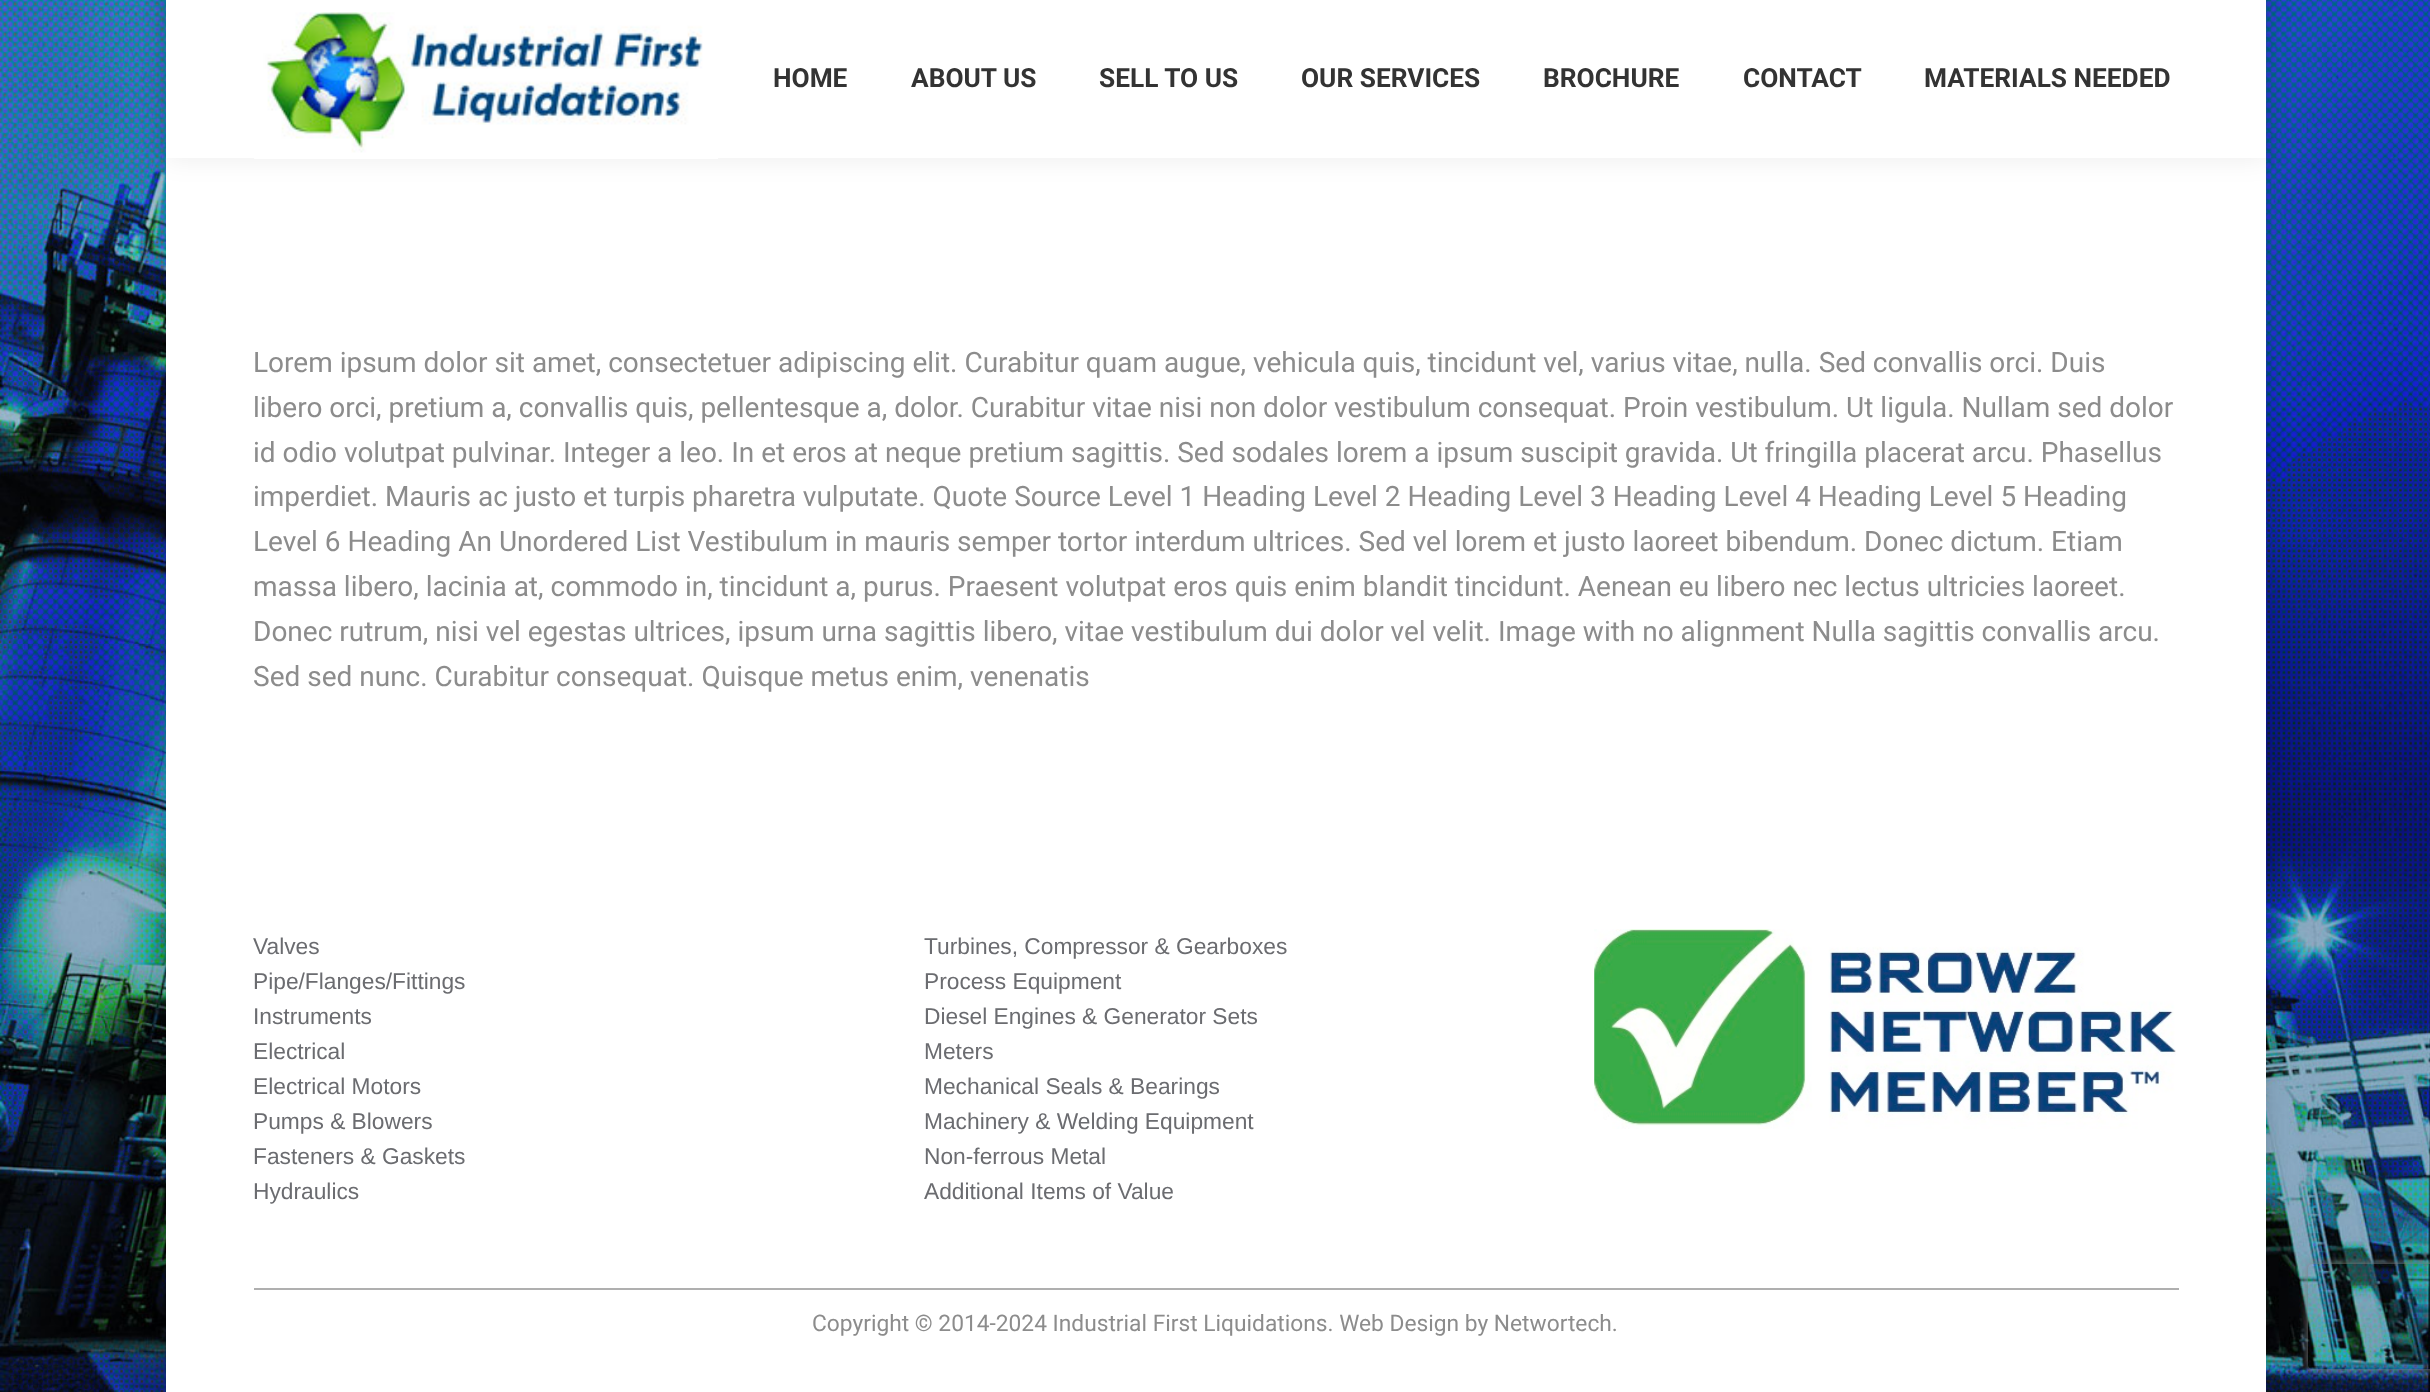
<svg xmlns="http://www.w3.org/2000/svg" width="2430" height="1392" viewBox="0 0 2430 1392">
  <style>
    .t1 { font: bold 26.25px Roboto; fill: #333; }
    .t2 { font: 28px Roboto; fill: #8c8c8c; }
    .t3 { font: 22.75px Liberation Sans; fill: #6b6c70; }
    .t4 { font: 22.75px Roboto; fill: #8c8c8c; }
  </style>
  <defs>
    <clipPath id="clip1"><path d="M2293 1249H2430V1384H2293ZM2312 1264H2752C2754 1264 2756 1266 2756 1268V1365C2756 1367 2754 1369 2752 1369H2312C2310 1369 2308 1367 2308 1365V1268C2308 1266 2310 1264 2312 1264Z" clip-rule="evenodd"/></clipPath>
  </defs>
  <rect width="100%" height="100%" fill="#fff"/>
  <image x="0" y="0" width="2430" height="1392" href="images/1.png"/>
  <rect x="166" y="-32" width="2100" height="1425" fill="#00000026" filter="blur(10.5px)"/>
  <rect x="166" y="158" width="2100" height="1234" fill="#fff"/>
  <rect x="165" y="-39" width="2103" height="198" fill="#00000012" filter="blur(13px)"/>
  <rect x="166" y="0" width="2100" height="158" fill="#fff"/>
  <image x="254" y="12" width="464" height="147" href="images/2.png"/>
  <text x="773" y="87" class="t1">HOME</text>
  <text x="911" y="87" class="t1">ABOUT US</text>
  <text x="1099" y="87" class="t1">SELL TO US</text>
  <text x="1301" y="87" class="t1">OUR SERVICES</text>
  <text x="1543" y="87" class="t1">BROCHURE</text>
  <text x="1743" y="87" class="t1">CONTACT</text>
  <text x="1924" y="87" class="t1">MATERIALS NEEDED</text>
  <text x="253" y="372" class="t2">Lorem ipsum dolor sit amet, consectetuer adipiscing elit. Curabitur quam augue, vehicula quis, tincidunt vel, varius vitae, nulla. Sed convallis orci. Duis</text>
  <text x="253" y="417" class="t2">libero orci, pretium a, convallis quis, pellentesque a, dolor. Curabitur vitae nisi non dolor vestibulum consequat. Proin vestibulum. Ut ligula. Nullam sed dolor</text>
  <text x="253" y="462" class="t2">id odio volutpat pulvinar. Integer a leo. In et eros at neque pretium sagittis. Sed sodales lorem a ipsum suscipit gravida. Ut fringilla placerat arcu. Phasellus</text>
  <text x="253" y="506" class="t2">imperdiet. Mauris ac justo et turpis pharetra vulputate. Quote Source Level 1 Heading Level 2 Heading Level 3 Heading Level 4 Heading Level 5 Heading</text>
  <text x="253" y="551" class="t2">Level 6 Heading An Unordered List Vestibulum in mauris semper tortor interdum ultrices. Sed vel lorem et justo laoreet bibendum. Donec dictum. Etiam</text>
  <text x="253" y="596" class="t2">massa libero, lacinia at, commodo in, tincidunt a, purus. Praesent volutpat eros quis enim blandit tincidunt. Aenean eu libero nec lectus ultricies laoreet.</text>
  <text x="253" y="641" class="t2">Donec rutrum, nisi vel egestas ultrices, ipsum urna sagittis libero, vitae vestibulum dui dolor vel velit. Image with no alignment Nulla sagittis convallis arcu.</text>
  <text x="253" y="686" class="t2">Sed sed nunc. Curabitur consequat. Quisque metus enim, venenatis</text>
  <text x="253" y="954" class="t3">Valves</text>
  <text x="253" y="989" class="t3">Pipe/Flanges/Fittings</text>
  <text x="253" y="1024" class="t3">Instruments</text>
  <text x="253" y="1059" class="t3">Electrical</text>
  <text x="253" y="1094" class="t3">Electrical Motors</text>
  <text x="253" y="1129" class="t3">Pumps &amp; Blowers</text>
  <text x="253" y="1164" class="t3">Fasteners &amp; Gaskets</text>
  <text x="253" y="1199" class="t3">Hydraulics</text>
  <text x="924" y="954" class="t3">Turbines, Compressor &amp; Gearboxes</text>
  <text x="924" y="989" class="t3">Process Equipment</text>
  <text x="924" y="1024" class="t3">Diesel Engines &amp; Generator Sets</text>
  <text x="924" y="1059" class="t3">Meters</text>
  <text x="924" y="1094" class="t3">Mechanical Seals &amp; Bearings</text>
  <text x="924" y="1129" class="t3">Machinery &amp; Welding Equipment</text>
  <text x="924" y="1164" class="t3">Non-ferrous Metal</text>
  <text x="924" y="1199" class="t3">Additional Items of Value</text>
  <image x="1594" y="929" width="582" height="200" href="images/3.png"/>
  <rect x="254" y="1288" width="1925" height="2" fill="#afafaf"/>
  <text x="812" y="1331" class="t4">Copyright © 2014-2024 Industrial First Liquidations. Web Design by Networtech.</text>
  <g clip-path="url(#clip1)">
    <rect x="2308" y="1264" width="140" height="105" rx="4" fill="#808080" filter="blur(4.5px)"/>
  </g>
</svg>
